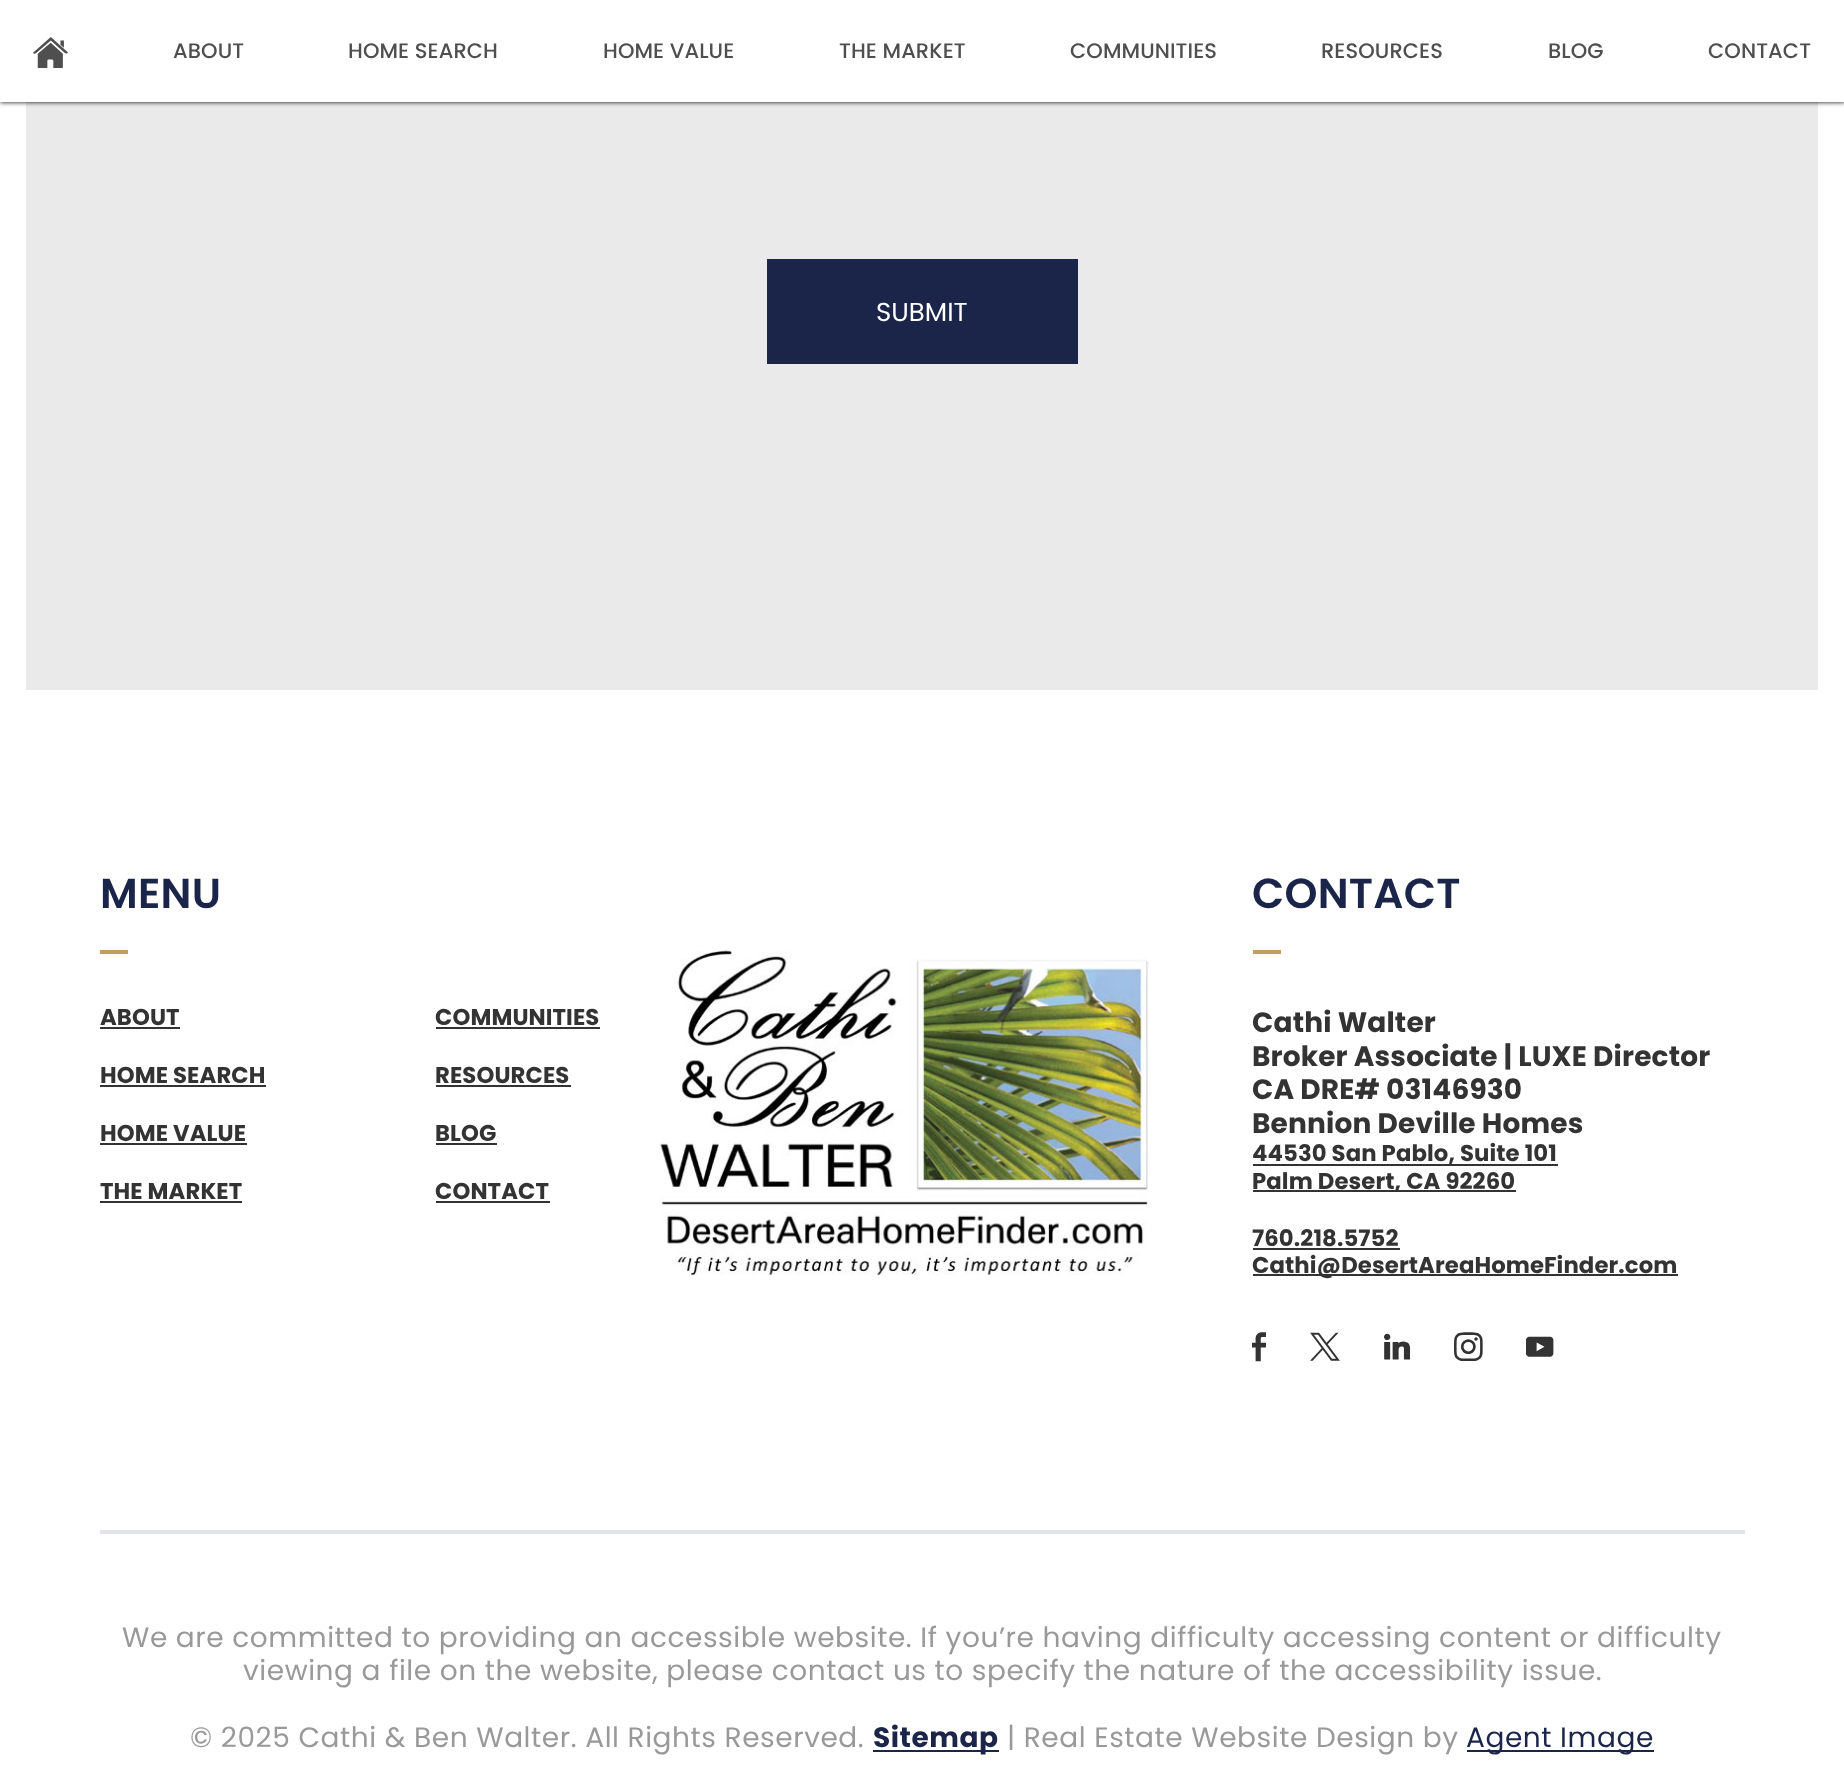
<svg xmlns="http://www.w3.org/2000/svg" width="1844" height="1790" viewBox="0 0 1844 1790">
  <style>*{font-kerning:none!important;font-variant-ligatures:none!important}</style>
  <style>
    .t1 { font: 35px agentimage; fill: #4f4f4f; }
    .t2 { font: 500 21px Poppins; letter-spacing: 0.1px; fill: #4f4f4f; }
    .t3 { font: 26px Poppins; fill: #fff; }
    .t4 { font: 600 42px Poppins; letter-spacing: 0.25px; fill: #1b2549; }
    .t5 { font: bold 22.75px Poppins; letter-spacing: 0.1px; fill: #333; }
    .t6 { font: bold 28px Poppins; letter-spacing: 0.15px; fill: #333; }
    .t7 { font: 35px agentimage; fill: #333; }
    .t8 { font: 28px Poppins; letter-spacing: 0.56px; fill: #999; }
    .t9 { font: bold 28px Poppins; letter-spacing: 0.56px; fill: #1b2549; }
    .t10 { font: 28px Poppins; letter-spacing: 0.56px; fill: #1b2549; }
  </style>
  <rect width="100%" height="100%" fill="#fff"/>
  <rect x="26" y="102" width="1792" height="588" fill="#eaeaea"/>
  <rect x="0" y="0" width="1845" height="102" fill="#000" filter="blur(2.5px)"/>
  <rect x="0" y="0" width="1844" height="102" fill="#fff"/>
  <text x="33" y="67" class="t1">򰄨</text>
  <text x="173" y="58" class="t2">ABOUT</text>
  <text x="348" y="58" class="t2">HOME SEARCH</text>
  <text x="603" y="58" class="t2">HOME VALUE</text>
  <text x="839" y="58" class="t2">THE MARKET</text>
  <text x="1070" y="58" class="t2">COMMUNITIES</text>
  <text x="1321" y="58" class="t2">RESOURCES</text>
  <text x="1548" y="58" class="t2">BLOG</text>
  <text x="1708" y="58" class="t2">CONTACT</text>
  <rect x="767" y="259" width="311" height="105" fill="#1b2549"/>
  <text x="876" y="321" class="t3">SUBMIT</text>
  <text x="100" y="908" class="t4">MENU</text>
  <rect x="100" y="950" width="28" height="4" fill="#bfa060"/>
  <text x="100" y="1025" class="t5">ABOUT</text>
  <rect x="100" y="1027" width="80" height="2" fill="#333"/>
  <text x="435" y="1025" class="t5">COMMUNITIES</text>
  <rect x="436" y="1027" width="164" height="2" fill="#333"/>
  <text x="100" y="1083" class="t5">HOME SEARCH</text>
  <rect x="100" y="1085" width="166" height="2" fill="#333"/>
  <text x="435" y="1083" class="t5">RESOURCES</text>
  <rect x="436" y="1085" width="135" height="2" fill="#333"/>
  <text x="100" y="1141" class="t5">HOME VALUE</text>
  <rect x="100" y="1143" width="147" height="2" fill="#333"/>
  <text x="435" y="1141" class="t5">BLOG</text>
  <rect x="436" y="1143" width="61" height="2" fill="#333"/>
  <text x="100" y="1199" class="t5">THE MARKET</text>
  <rect x="100" y="1201" width="142" height="2" fill="#333"/>
  <text x="435" y="1199" class="t5">CONTACT</text>
  <rect x="436" y="1201" width="114" height="2" fill="#333"/>
  <image x="659" y="949" width="490" height="326" href="images/1.png"/>
  <text x="1252" y="908" class="t4">CONTACT</text>
  <rect x="1253" y="950" width="28" height="4" fill="#bfa060"/>
  <text x="1252" y="1032" class="t6">Cathi Walter</text>
  <text x="1252" y="1066" class="t6">Broker Associate | LUXE Director</text>
  <text x="1252" y="1099" class="t6">CA DRE# 03146930</text>
  <text x="1252" y="1133" class="t6">Bennion Deville Homes</text>
  <text x="1252" y="1161" class="t5">44530 San Pablo, Suite 101</text>
  <rect x="1253" y="1164" width="305" height="2" fill="#333"/>
  <rect x="1253" y="1190" width="263" height="2" fill="#333"/>
  <text x="1252" y="1189" class="t5">Palm Desert, CA 92260</text>
  <text x="1252" y="1246" class="t5">760.218.5752</text>
  <rect x="1253" y="1248" width="147" height="2" fill="#333"/>
  <rect x="1253" y="1274" width="425" height="2" fill="#333"/>
  <text x="1252" y="1273" class="t5">Cathi@DesertAreaHomeFinder.com</text>
  <text x="1252" y="1362" class="t7">򰄔</text>
  <text x="1310" y="1362" class="t7">򰄀</text>
  <text x="1384" y="1362" class="t7">򰄅</text>
  <text x="1454" y="1362" class="t7">򰄆</text>
  <text x="1526" y="1362" class="t7">򰂖</text>
  <rect x="100" y="1530" width="1645" height="4" fill="#e3e4e9"/>
  <text x="122" y="1647" class="t8">We are committed to providing an accessible website. If you’re having difficulty accessing content or difficulty</text>
  <text x="243" y="1680" class="t8">viewing a file on the website, please contact us to specify the nature of the accessibility issue.</text>
  <text x="190" y="1747" class="t8">© 2025 Cathi &amp; Ben Walter. All Rights Reserved.</text>
  <rect x="873" y="1750" width="126" height="2" fill="#1b2549"/>
  <text x="873" y="1747" class="t9">Sitemap</text>
  <text x="1007" y="1747" class="t8">| Real Estate Website Design by</text>
  <rect x="1467" y="1750" width="187" height="2" fill="#1b2549"/>
  <text x="1466" y="1747" class="t10">Agent Image</text>
</svg>
